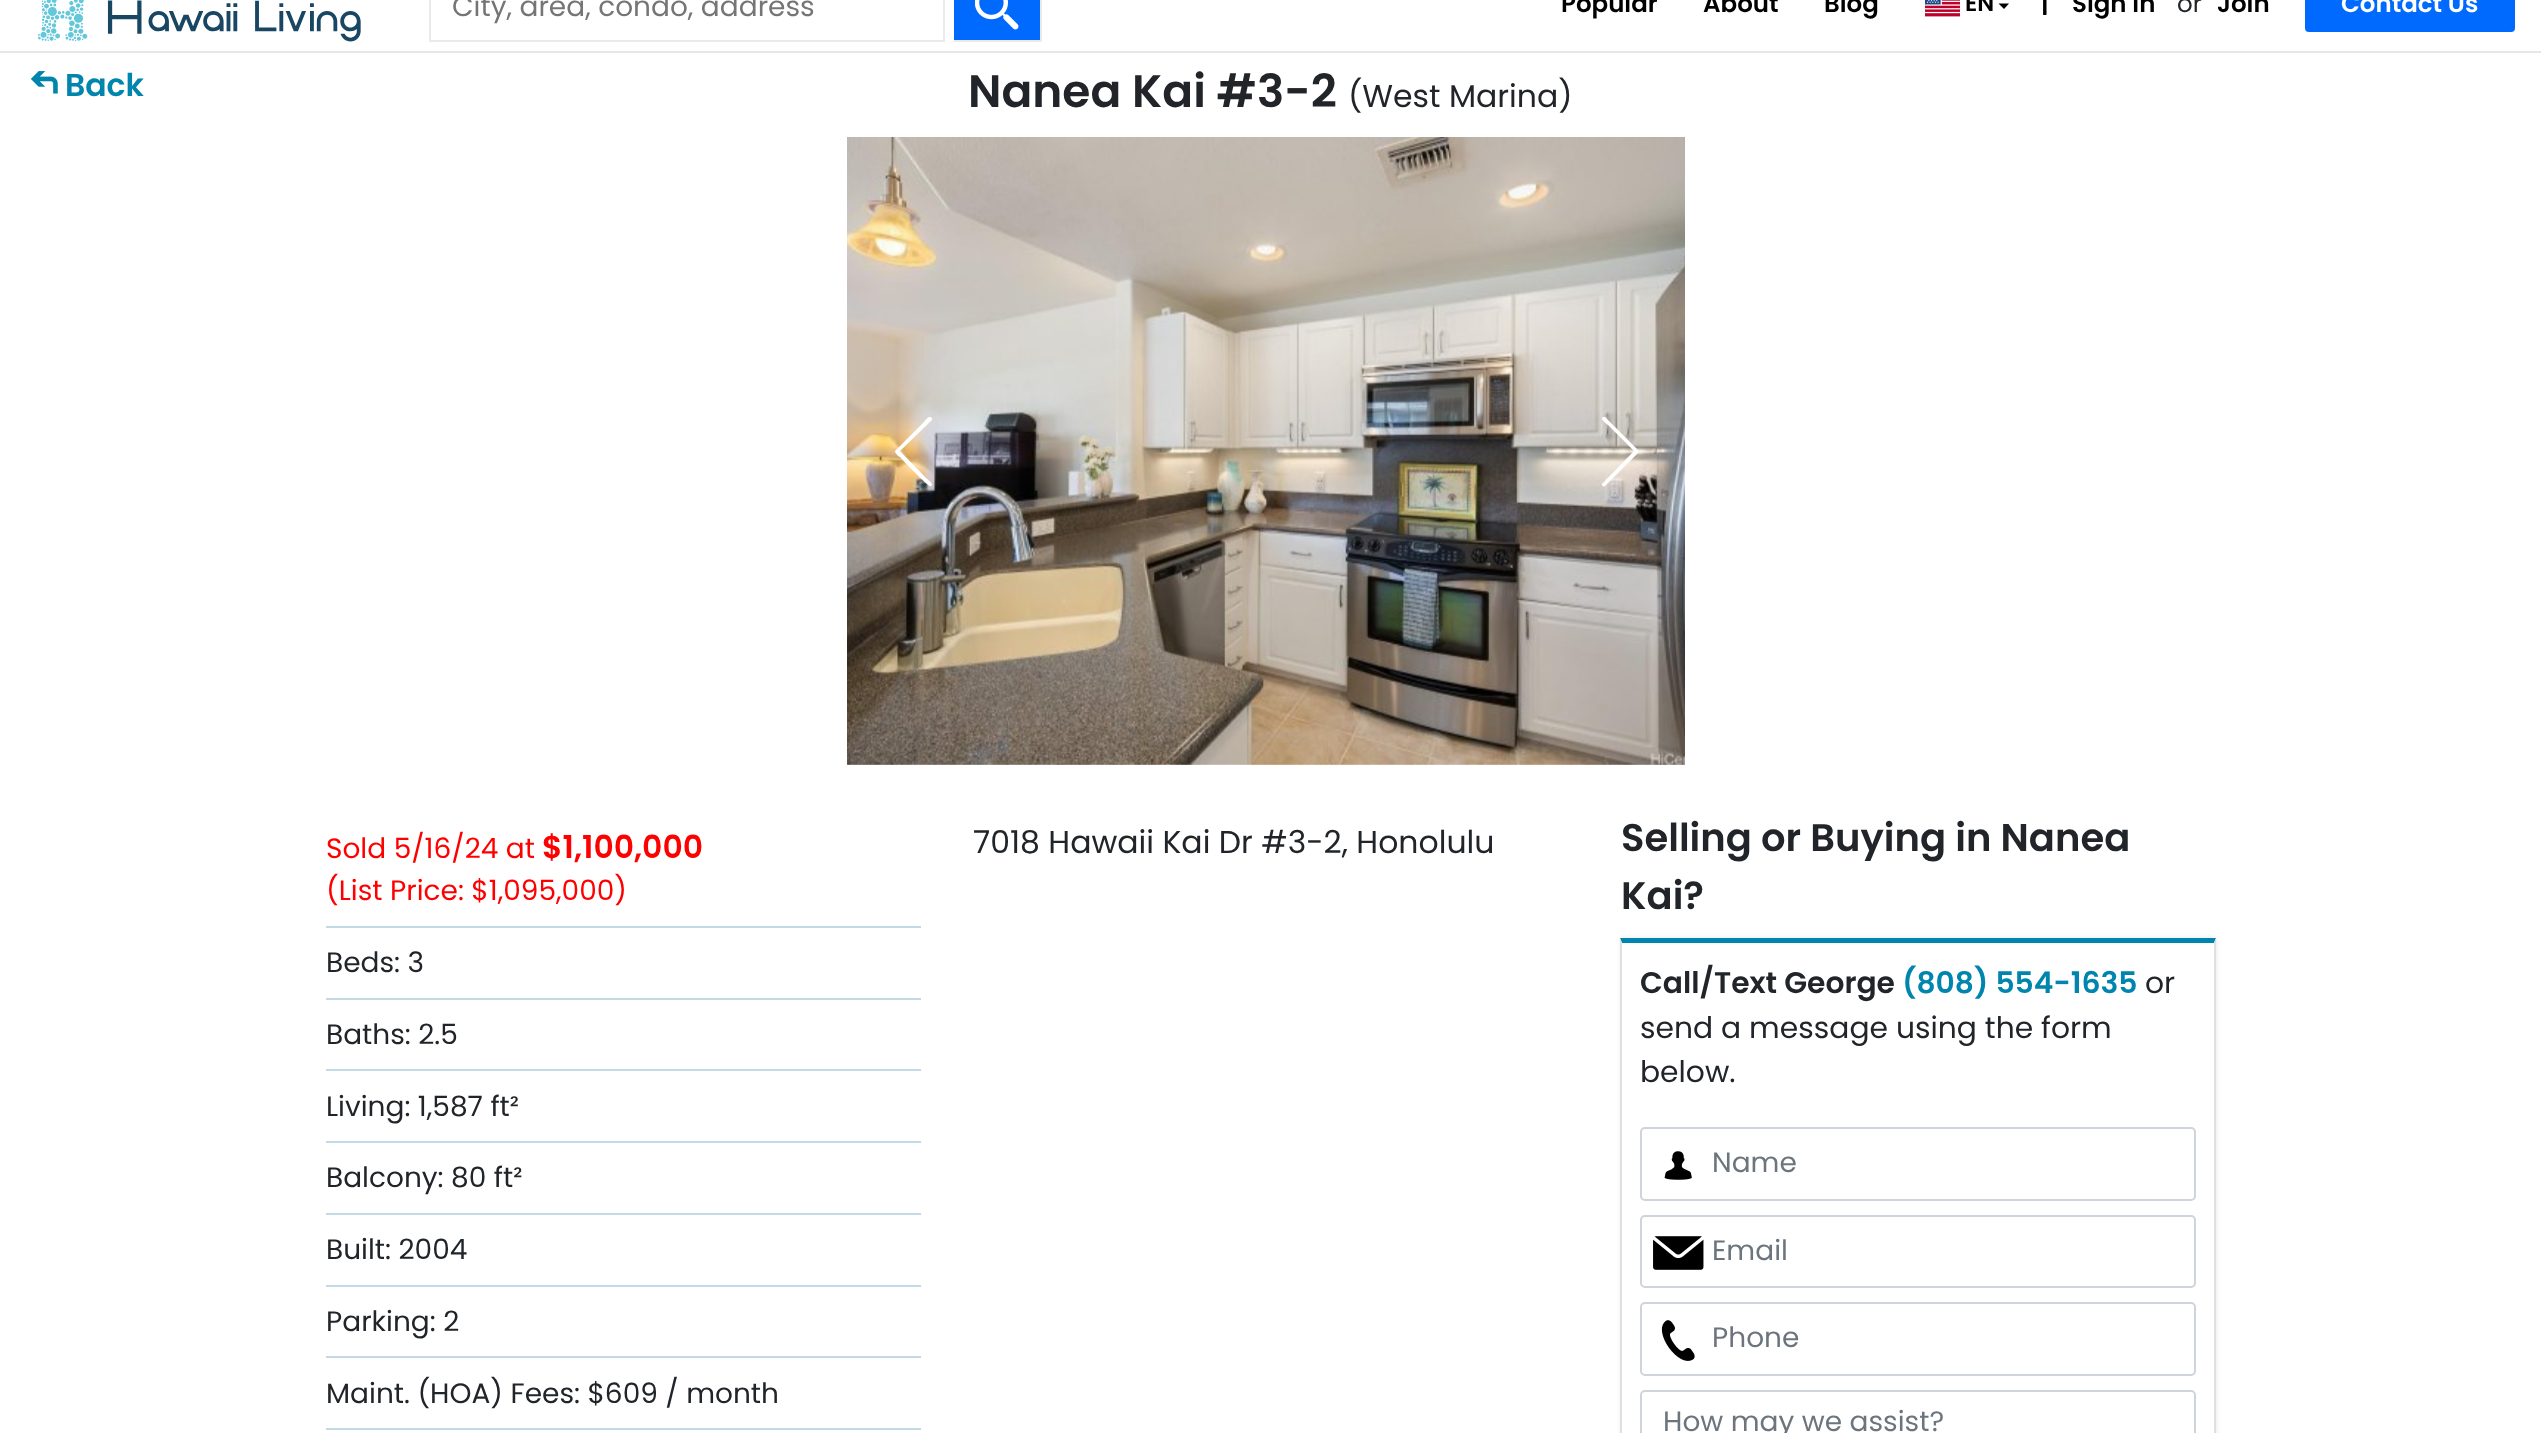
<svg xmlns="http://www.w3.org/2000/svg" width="2541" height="1433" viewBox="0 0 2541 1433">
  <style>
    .t1 { font: 28px Poppins; fill: #757575; }
    .t2 { font: 600 24.5px Poppins; fill: #000; }
    .t3 { font: 600 23px Poppins; fill: #000; }
    .t4 { font: 24.5px Poppins; fill: #212529; }
    .t5 { font: 600 24.5px Poppins; fill: #fff; }
    .t6 { font: 600 31.5px Poppins; fill: #0085ae; }
    .t7 { font: 600 45.5px Poppins; fill: #212529; }
    .t8 { font: 31.5px Poppins; fill: #212529; }
    .t9 { font: 28px Poppins; fill: #f00; }
    .t10 { font: 600 31.5px Poppins; fill: #f00; }
    .t11 { font: 28px Poppins; fill: #212529; }
    .t12 { font: 600 38.5px Poppins; fill: #212529; }
    .t13 { font: 600 29.75px Poppins; fill: #212529; }
    .t14 { font: 600 29.75px Poppins; fill: #0085ae; }
    .t15 { font: 29.75px Poppins; fill: #212529; }
    .t16 { font: 28px Poppins; fill: #6c757d; }
  </style>
  <defs>
    <clipPath id="clip1"><path d="M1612 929H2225V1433H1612ZM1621 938H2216V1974H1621Z" clip-rule="evenodd"/></clipPath>
  </defs>
  <rect width="100%" height="100%" fill="#fff"/>
  <rect x="430" y="-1" width="514" height="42" fill="none" stroke="#eaeaea" stroke-width="2"/>
  <text x="452" y="16" class="t1">City, area, condo, address</text>
  <rect x="954" y="0" width="86" height="40" fill="#006aff"/>
  <image x="975" y="0" width="44" height="30" href="images/1.png"/>
  <rect x="1040" y="0" width="2" height="42" fill="#eaeaea"/>
  <rect x="954" y="40" width="87" height="2" fill="#eaeaea"/>
  <image x="37" y="0" width="324" height="42" href="images/2.png"/>
  <text x="1561" y="12" class="t2">Popular</text>
  <text x="1703" y="12" class="t2">About</text>
  <text x="1824" y="12" class="t2">Blog</text>
  <image x="1925" y="0" width="35" height="17" href="images/3.png"/>
  <text x="1965" y="11" class="t3">EN</text>
  <path d="M1998.5 3.5H2009L2004 9Z" fill="#000"/>
  <text x="2041" y="12" class="t2">|</text>
  <text x="2072" y="12" class="t2">Sign in</text>
  <text x="2177" y="12" class="t4">or</text>
  <text x="2217" y="12" class="t2">Join</text>
  <rect x="2305" y="-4" width="210" height="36" rx="4" fill="#006aff"/>
  <text x="2341" y="12" class="t5">Contact Us</text>
  <rect x="0" y="51" width="2541" height="2" fill="#e6e6e6"/>
  <image x="30" y="71" width="28" height="23" href="images/4.png"/>
  <text x="65" y="96" class="t6">Back</text>
  <text x="968" y="107" class="t7">Nanea Kai #3-2</text>
  <text x="1348" y="107" class="t8">(West Marina)</text>
  <image x="847" y="137" width="838" height="628" href="images/5.png"/>
  <path d="M900 451L932 420C932 418 932 417 930 417C928 416 924 422 923 423L895 451C895 454 901 458 901 458C904 462 928 486 930 486H931C934 485 930 481 926 478Z" fill="#fff"/>
  <path d="M1638 450L1605 417H1603C1600 418 1604 422 1608 425L1634 451L1602 484C1602 486 1603 487 1605 486L1639 452Z" fill="#fff"/>
  <rect x="326" y="926" width="595" height="2" fill="#c3dae4"/>
  <text x="326" y="858" class="t9">Sold 5/16/24 at</text>
  <text x="542" y="858" class="t10">$1,100,000</text>
  <text x="326" y="900" class="t9">(List Price: $1,095,000)</text>
  <rect x="326" y="998" width="595" height="2" fill="#c3dae4"/>
  <text x="326" y="972" class="t11">Beds: 3</text>
  <rect x="326" y="1069" width="595" height="2" fill="#c3dae4"/>
  <text x="326" y="1044" class="t11">Baths: 2.5</text>
  <rect x="326" y="1141" width="595" height="2" fill="#c3dae4"/>
  <text x="326" y="1116" class="t11">Living: 1,587 ft²</text>
  <rect x="326" y="1213" width="595" height="2" fill="#c3dae4"/>
  <text x="326" y="1187" class="t11">Balcony: 80 ft²</text>
  <rect x="326" y="1285" width="595" height="2" fill="#c3dae4"/>
  <text x="326" y="1259" class="t11">Built: 2004</text>
  <rect x="326" y="1356" width="595" height="2" fill="#c3dae4"/>
  <text x="326" y="1331" class="t11">Parking: 2</text>
  <rect x="326" y="1428" width="595" height="2" fill="#c3dae4"/>
  <text x="326" y="1403" class="t11">Maint. (HOA) Fees: $609 / month</text>
  <text x="973" y="853" class="t8">7018 Hawaii Kai Dr #3-2, Honolulu</text>
  <text x="1621" y="851" class="t12">Selling or Buying in Nanea</text>
  <text x="1621" y="909" class="t12">Kai?</text>
  <g clip-path="url(#clip1)">
    <rect x="1621" y="938" width="595" height="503" fill="#0000001a" filter="blur(2.5px)"/>
  </g>
  <path d="M1620 938H2216L2214 943H1622Z" fill="#0085ae"/>
  <path d="M2216 938V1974L2214 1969V943Z" fill="#e0e0e0"/>
  <path d="M1620 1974V938L1622 943V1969Z" fill="#e0e0e0"/>
  <text x="1640" y="993" class="t13">Call/Text George</text>
  <text x="1902" y="993" class="t14">(808) 554-1635</text>
  <text x="2145" y="993" class="t15">or</text>
  <text x="1640" y="1038" class="t15">send a message using the form</text>
  <text x="1640" y="1082" class="t15">below.</text>
  <image x="1664" y="1151" width="28" height="29" href="images/6.png"/>
  <rect x="1641" y="1128" width="554" height="72" rx="4" fill="none" stroke="#ced4da" stroke-width="2"/>
  <text x="1712" y="1172" class="t16">Name</text>
  <image x="1653" y="1236" width="51" height="34" href="images/7.png"/>
  <rect x="1641" y="1216" width="554" height="71" rx="4" fill="none" stroke="#ced4da" stroke-width="2"/>
  <text x="1712" y="1260" class="t16">Email</text>
  <image x="1661" y="1320" width="34" height="41" href="images/8.png"/>
  <rect x="1641" y="1303" width="554" height="72" rx="4" fill="none" stroke="#ced4da" stroke-width="2"/>
  <text x="1712" y="1347" class="t16">Phone</text>
  <rect x="1641" y="1391" width="554" height="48" rx="4" fill="none" stroke="#ced4da" stroke-width="2"/>
  <text x="1663" y="1431" class="t16">How may we assist?</text>
</svg>
